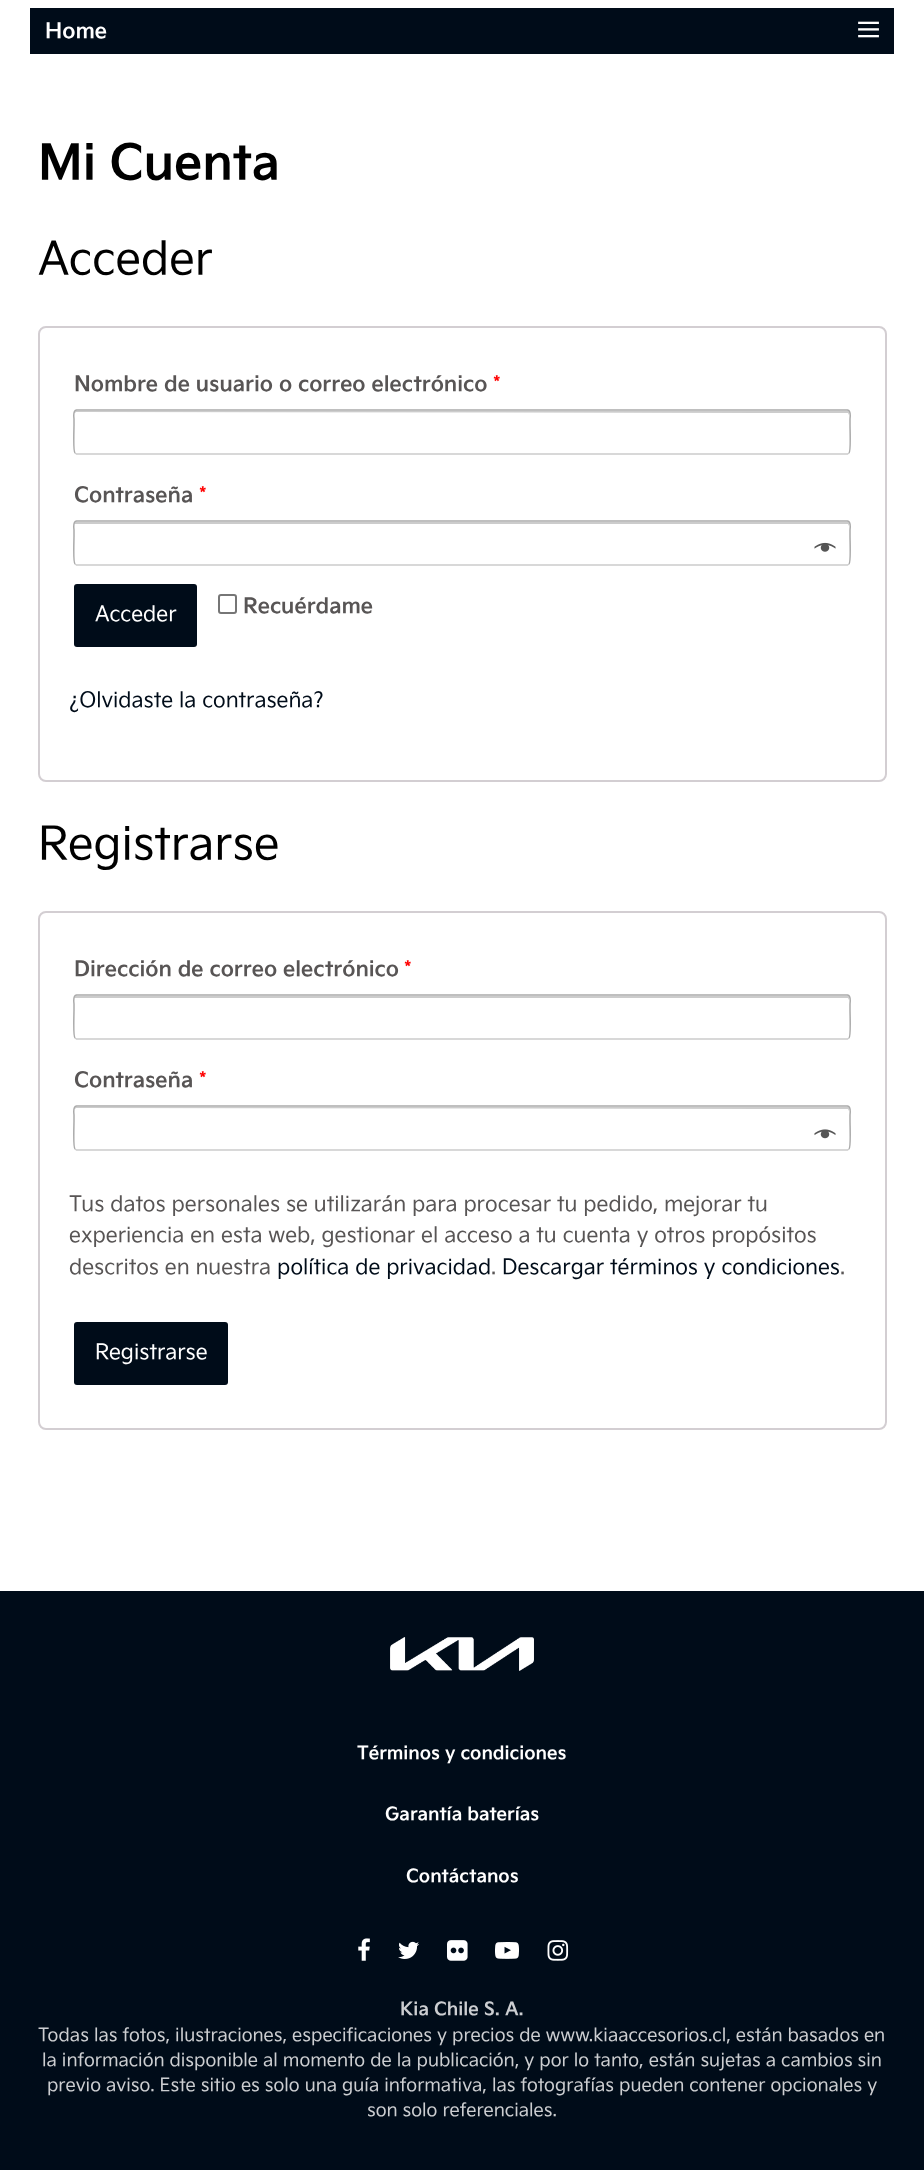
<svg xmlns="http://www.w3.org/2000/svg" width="924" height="2170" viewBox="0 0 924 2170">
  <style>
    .t1 { font: bold 21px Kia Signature; fill: #fff; }
    .t2 { font: 42px Kia Signature; fill: #fff; }
    .t3 { font: bold 48px Kia Signature; fill: #000; }
    .t4 { font: 45px Kia Signature; fill: #000; }
    .t5 { font: bold 21px Kia Signature; fill: #585555; }
    .t6 { font: bold 21px Kia Signature; fill: #f00; }
    .t7 { font: 21px Kia Signature; fill: #fff; }
    .t8 { font: 21px Kia Signature; fill: #000c19; }
    .t9 { font: 21px Kia Signature; fill: #585555; }
    .t10 { font: bold 18px Kia Signature; fill: #fff; }
    .t11 { font: bold 18px Kia Signature; fill: #ccced1; }
    .t12 { font: 18px Kia Signature; fill: #ccced1; }
  </style>
  <rect width="100%" height="100%" fill="#fff"/>
  <rect x="30" y="8" width="864" height="46" fill="#000c19"/>
  <text x="45" y="38" class="t1">Home</text>
  <text x="849" y="44" class="t2">≡</text>
  <text x="38" y="179" class="t3">Mi Cuenta</text>
  <text x="38" y="274" class="t4">Acceder</text>
  <rect x="39" y="327" width="847" height="454" rx="7" fill="none" stroke="#d3ced2" stroke-width="2"/>
  <text x="74" y="391" class="t5">Nombre de usuario o correo electrónico</text>
  <text x="493" y="391" class="t6">*</text>
  <path d="M76 412L848 413L849 415C849 414 850 411 848 411H76C75 411 75 412 75 413Z" fill="#ccc"/>
  <path d="M849 453L847.5 454H76.5L75 453" fill="none" stroke="#ccc" stroke-width="1.5"/>
  <path d="M75 453C73 451.5 74 429.5 74 425.5V419C74 418 72.5 410.5 76.5 410H847.5C851.5 410.5 850 418 850 419V425.5C850 429.5 851 451.5 849 453" fill="none" stroke="#aaa" stroke-width="1.5"/>
  <text x="74" y="502" class="t5">Contraseña</text>
  <text x="199" y="502" class="t6">*</text>
  <path d="M76 522C75 522 75 523 75 524H848L849 526C849 525 850 522 848 522Z" fill="#ccc"/>
  <path d="M849 564L847.5 565H76.5L75 564" fill="none" stroke="#ccc" stroke-width="1.5"/>
  <path d="M75 564C73 562.5 74 540.5 74 536.5V530C74 529 72.5 521.5 76.5 521H847.5C851.5 521.5 850 529 850 530V536.5C850 540.5 851 562.5 849 564" fill="none" stroke="#aaa" stroke-width="1.5"/>
  <image x="814" y="542" width="22" height="10" href="images/1.png"/>
  <rect x="74" y="584" width="123" height="63" rx="3" fill="#000c19"/>
  <text x="95" y="621" class="t7">Acceder</text>
  <rect x="219" y="595" width="17" height="18" rx="2" fill="none" stroke="#767676" stroke-width="2"/>
  <text x="243" y="613" class="t5">Recuérdame</text>
  <text x="69" y="707" class="t8">¿Olvidaste la contraseña?</text>
  <text x="38" y="859" class="t4">Registrarse</text>
  <rect x="39" y="912" width="847" height="517" rx="7" fill="none" stroke="#d3ced2" stroke-width="2"/>
  <text x="74" y="976" class="t5">Dirección de correo electrónico</text>
  <text x="404" y="976" class="t6">*</text>
  <path d="M76 996C75 996 75 997 75 998H848L849 1000C849 999 850 996 848 996Z" fill="#ccc"/>
  <path d="M849 1038L847.5 1039H76.5L75 1038" fill="none" stroke="#ccc" stroke-width="1.5"/>
  <path d="M75 1038C73 1036.5 74 1014.5 74 1010.5V1004C74 1003 72.5 995.5 76.5 995H847.5C851.5 995.5 850 1003 850 1004V1010.5C850 1014.5 851 1036.5 849 1038" fill="none" stroke="#aaa" stroke-width="1.5"/>
  <text x="74" y="1087" class="t5">Contraseña</text>
  <text x="199" y="1087" class="t6">*</text>
  <path d="M76 1108L848 1109L849 1111C849 1110 850 1107 848 1107H76C75 1107 75 1108 75 1109Z" fill="#ccc"/>
  <path d="M849 1149L847.5 1150H76.5L75 1149" fill="none" stroke="#ccc" stroke-width="1.5"/>
  <path d="M75 1149C73 1147.5 74 1125.5 74 1121.5V1115C74 1114 72.5 1106.5 76.5 1106H847.5C851.5 1106.5 850 1114 850 1115V1121.5C850 1125.5 851 1147.5 849 1149" fill="none" stroke="#aaa" stroke-width="1.5"/>
  <image x="814" y="1129" width="22" height="10" href="images/2.png"/>
  <text x="69" y="1211" class="t9">Tus datos personales se utilizarán para procesar tu pedido, mejorar tu</text>
  <text x="69" y="1242" class="t9">experiencia en esta web, gestionar el acceso a tu cuenta y otros propósitos</text>
  <text x="69" y="1274" class="t9">descritos en nuestra</text>
  <text x="277" y="1274" class="t8">política de privacidad</text>
  <text x="491" y="1274" class="t9">.</text>
  <text x="502" y="1274" class="t8">Descargar términos y condiciones</text>
  <text x="840" y="1274" class="t9">.</text>
  <rect x="74" y="1322" width="154" height="63" rx="3" fill="#000c19"/>
  <text x="95" y="1359" class="t7">Registrarse</text>
  <rect x="0" y="1591" width="924" height="579" fill="#000c19"/>
  <image x="390" y="1637" width="144" height="34" href="images/3.png"/>
  <text x="357" y="1759" class="t10">Términos y condiciones</text>
  <text x="385" y="1820" class="t10">Garantía baterías</text>
  <text x="406" y="1882" class="t10">Contáctanos</text>
  <image x="358" y="1938" width="12" height="23" href="images/4.png"/>
  <image x="398" y="1941" width="21" height="18" href="images/5.png"/>
  <image x="447" y="1940" width="21" height="21" href="images/6.png"/>
  <image x="495" y="1942" width="24" height="17" href="images/7.png"/>
  <image x="547" y="1940" width="22" height="21" href="images/8.png"/>
  <text x="400" y="2015" class="t11">Kia Chile S. A.</text>
  <text x="38" y="2041" class="t12">Todas las fotos, ilustraciones, especificaciones y precios de www.kiaaccesorios.cl, están basados en</text>
  <text x="42" y="2066" class="t12">la información disponible al momento de la publicación, y por lo tanto, están sujetas a cambios sin</text>
  <text x="47" y="2091" class="t12">previo aviso. Este sitio es solo una guía informativa, las fotografías pueden contener opcionales y</text>
  <text x="367" y="2116" class="t12">son solo referenciales.</text>
</svg>
